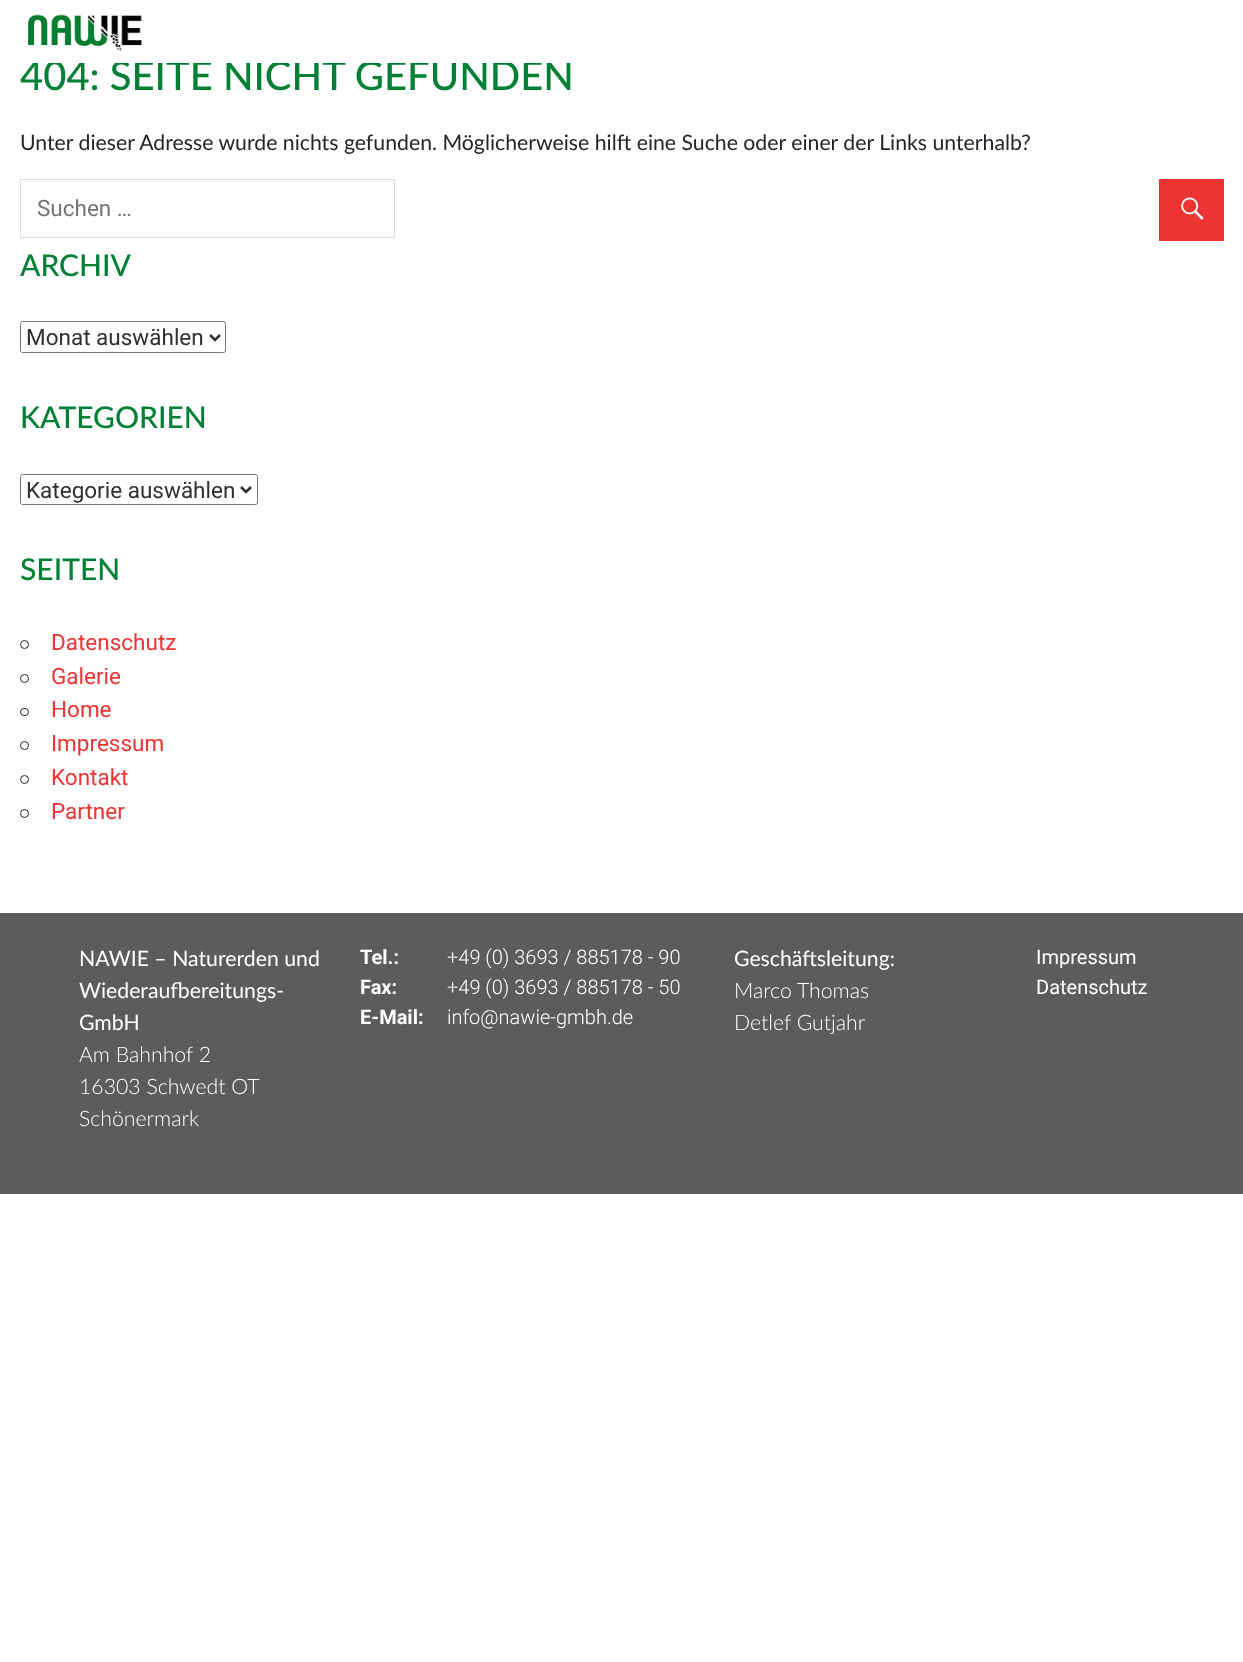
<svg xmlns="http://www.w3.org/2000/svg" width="1243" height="1662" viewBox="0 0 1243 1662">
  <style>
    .t1 { font: 500 40px Lato; fill: #008035; }
    .t2 { font: 21.25px Lato; fill: #212529; }
    .t3 { font: 22.5px Roboto; fill: #757575; }
    .t4 { font: 500 30px Lato; fill: #008035; }
    .t5 { font: 22.5px Roboto; fill: #303030; }
    .t6 { font: 22.5px Roboto; fill: #e33; }
    .t7 { font: 21.25px Lato; fill: #fff; }
    .t8 { font: 300 21.25px Lato; fill: #fff; }
    .t9 { font: bold 20px Roboto; fill: #fff; }
    .t10 { font: 300 20px Roboto; fill: #fff; }
    .t11 { font: 20px Roboto; fill: #fff; }
  </style>
  <rect width="100%" height="100%" fill="#fff"/>
  <text x="20" y="90" class="t1">404: SEITE NICHT GEFUNDEN</text>
  <rect x="33" y="61" width="538" height="2" fill="#fff"/>
  <image x="28" y="14" width="114" height="37" href="images/1.png"/>
  <text x="20" y="150" class="t2">Unter dieser Adresse wurde nichts gefunden. Möglicherweise hilft eine Suche oder einer der Links unterhalb?</text>
  <rect x="20.5" y="179.5" width="374" height="58" fill="none" stroke="#ddd"/>
  <text x="37" y="216" class="t3">Suchen …</text>
  <rect x="1159" y="179" width="65" height="62" fill="#e33"/>
  <image x="1181" y="197" width="23" height="23" href="images/2.png"/>
  <text x="20" y="276" class="t4">ARCHIV</text>
  <rect x="20.5" y="321.5" width="205" height="31" rx="2" fill="none" stroke="#767676"/>
  <path d="M210 335L215 340L220 335" fill="none" stroke="#303030" stroke-width="2.5"/>
  <text x="26" y="345" class="t5">Monat auswählen</text>
  <text x="20" y="428" class="t4">KATEGORIEN</text>
  <rect x="20.5" y="474.5" width="237" height="30" rx="2" fill="none" stroke="#767676"/>
  <path d="M241 487L246 492L251 487" fill="none" stroke="#303030" stroke-width="2.5"/>
  <text x="26" y="498" class="t5">Kategorie auswählen</text>
  <text x="20" y="580" class="t4">SEITEN</text>
  <circle cx="24.5" cy="644.5" r="4" fill="none" stroke="#212529"/>
  <text x="51" y="650" class="t6">Datenschutz</text>
  <circle cx="24.5" cy="678.5" r="4" fill="none" stroke="#212529"/>
  <text x="51" y="684" class="t6">Galerie</text>
  <rect x="20.5" y="708.5" width="8" height="7" rx="3.5" fill="none" stroke="#212529"/>
  <text x="51" y="717" class="t6">Home</text>
  <circle cx="24.5" cy="745.5" r="4" fill="none" stroke="#212529"/>
  <text x="51" y="751" class="t6">Impressum</text>
  <circle cx="24.5" cy="779.5" r="4" fill="none" stroke="#212529"/>
  <text x="51" y="785" class="t6">Kontakt</text>
  <circle cx="24.5" cy="813.5" r="4" fill="none" stroke="#212529"/>
  <text x="51" y="819" class="t6">Partner</text>
  <rect x="0" y="913" width="1243" height="281" fill="#5c5c5c"/>
  <text x="79" y="966" class="t7">NAWIE – Naturerden und</text>
  <text x="79" y="998" class="t7">Wiederaufbereitungs-</text>
  <text x="79" y="1030" class="t7">GmbH</text>
  <text x="79" y="1062" class="t8">Am Bahnhof 2</text>
  <text x="79" y="1094" class="t8">16303 Schwedt OT</text>
  <text x="79" y="1126" class="t8">Schönermark</text>
  <text x="360" y="964" class="t9">Tel.:</text>
  <text x="447" y="964" class="t10">+49 (0) 3693 / 885178 - 90</text>
  <text x="360" y="994" class="t9">Fax:</text>
  <text x="447" y="994" class="t10">+49 (0) 3693 / 885178 - 50</text>
  <text x="360" y="1024" class="t9">E-Mail:</text>
  <text x="447" y="1024" class="t10">info@nawie-gmbh.de</text>
  <text x="734" y="966" class="t7">Geschäftsleitung:</text>
  <text x="734" y="998" class="t8">Marco Thomas</text>
  <text x="734" y="1030" class="t8">Detlef Gutjahr</text>
  <text x="1036" y="964" class="t11">Impressum</text>
  <text x="1036" y="994" class="t11">Datenschutz</text>
</svg>
